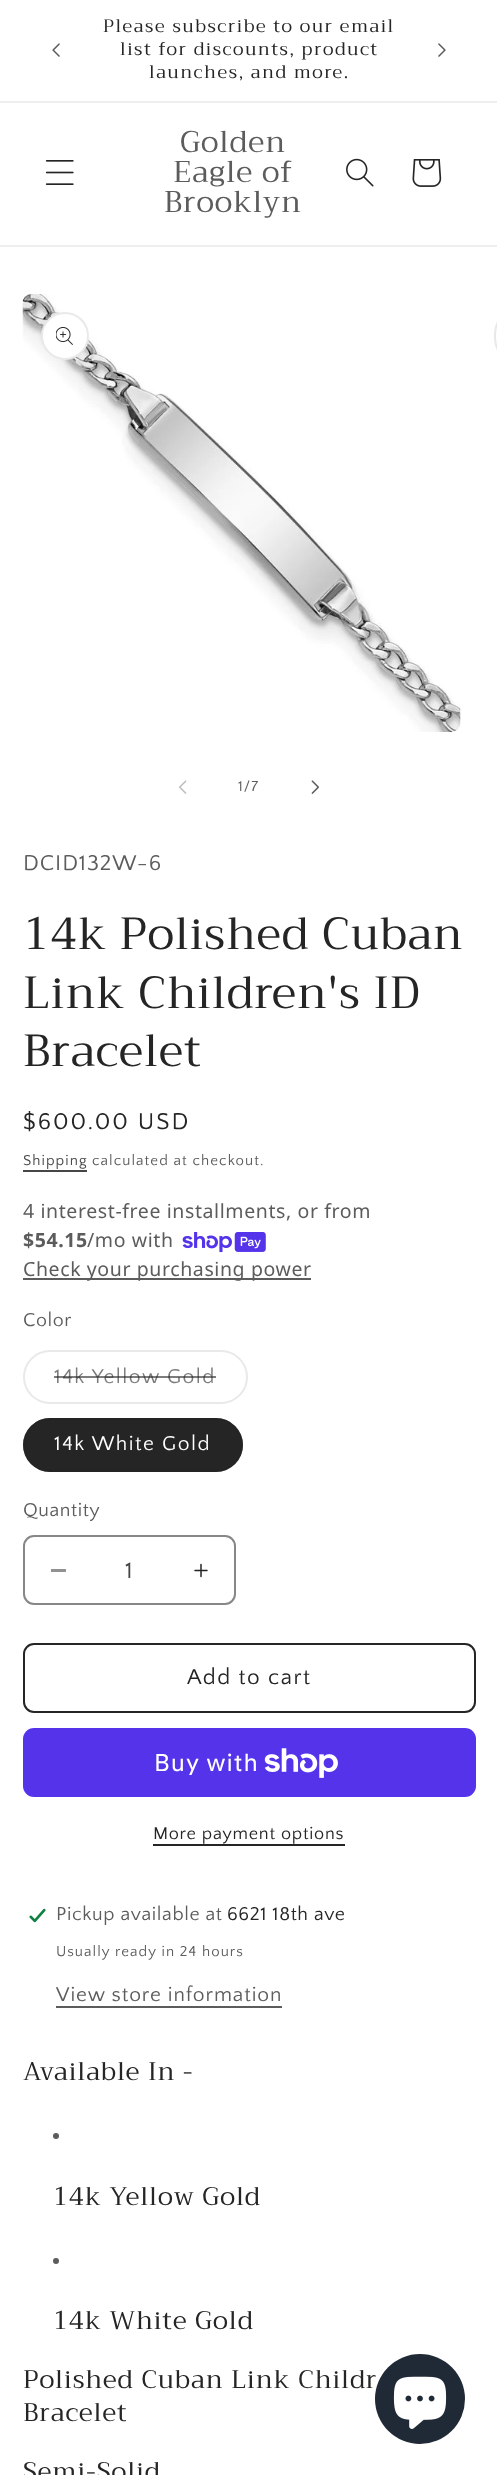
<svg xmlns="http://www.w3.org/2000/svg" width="497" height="2475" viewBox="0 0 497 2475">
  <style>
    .t1 { font: 18px Trirong; letter-spacing: 1.5px; fill: #252525; }
    .t2 { font: 30px Trirong; letter-spacing: 0.9px; fill: #5c5c5c; }
    .t3 { font: 15px Quattrocento Sans; letter-spacing: 1.05px; fill: #5c5c5c; }
    .t4 { font: 22.5px Quattrocento Sans; letter-spacing: 0.9px; fill: #5c5c5c; }
    .t5 { font: 45px Trirong; letter-spacing: 0.9px; fill: #252525; }
    .t6 { font: 24px Quattrocento Sans; letter-spacing: 2px; fill: #252525; }
    .t7 { font: 15px Quattrocento Sans; letter-spacing: 1.05px; fill: #464646; }
    .t8 { font: 19.5px Noto Sans; letter-spacing: 0.6px; fill: #5c5c5c; }
    .t9 { font: bold 19.5px Noto Sans; letter-spacing: 0.6px; fill: #5c5c5c; }
    .t10 { font: 19.5px Quattrocento Sans; letter-spacing: 0.6px; fill: #5c5c5c; }
    .t11 { font: 21px Quattrocento Sans; letter-spacing: 1.5px; fill: #7c7c7c; }
    .t12 { font: 21px Quattrocento Sans; letter-spacing: 1.5px; fill: #fff; }
    .t13 { font: 24px Quattrocento Sans; fill: #464646; }
    .t14 { font: 22.5px Quattrocento Sans; letter-spacing: 1.5px; fill: #252525; }
    .t15 { font: 24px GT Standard; letter-spacing: 0.9px; fill: #fff; }
    .t16 { font: 18px Quattrocento Sans; letter-spacing: 0.75px; fill: #252525; }
    .t17 { font: 19.5px Quattrocento Sans; letter-spacing: 0.6px; fill: #252525; }
    .t18 { font: 21px Quattrocento Sans; letter-spacing: 0.9px; fill: #5c5c5c; }
    .t19 { font: 25.5px Trirong; letter-spacing: 0.9px; fill: #252525; }
  </style>
  <rect width="100%" height="100%" fill="#fff"/>
  <rect x="0" y="101" width="497" height="2" fill="#eee"/>
  <image x="52" y="43" width="8" height="14" href="images/1.png"/>
  <text x="103" y="32" class="t1">Please subscribe to our email</text>
  <text x="120" y="55" class="t1">list for discounts, product</text>
  <text x="149" y="78" class="t1">launches, and more.</text>
  <image x="438" y="43" width="8" height="14" href="images/2.png"/>
  <rect x="0" y="245" width="497" height="2" fill="#eee"/>
  <image x="45" y="160" width="29" height="25" href="images/3.png"/>
  <text x="180" y="152" class="t2">Golden</text>
  <text x="173" y="182" class="t2">Eagle of</text>
  <text x="164" y="212" class="t2">Brooklyn</text>
  <image x="346" y="158" width="28" height="29" href="images/4.png"/>
  <image x="412" y="159" width="30" height="28" href="images/5.png"/>
  <image x="22" y="294" width="439" height="438" href="images/6.png"/>
  <circle cx="65" cy="336" r="24" fill="#fff"/>
  <circle cx="65" cy="336" r="23" fill="none" stroke="#2525251a" stroke-width="2"/>
  <image x="56" y="327" width="17" height="18" href="images/7.png"/>
  <rect x="495" y="313" width="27" height="46" rx="23" fill="none" stroke="#e9e9e9" stroke-width="2"/>
  <image x="179" y="780" width="8" height="14" href="images/8.png"/>
  <text x="238" y="791" class="t3">1/7</text>
  <image x="311" y="780" width="8" height="14" href="images/9.png"/>
  <text x="23" y="870" class="t4">DCID132W-6</text>
  <text x="23" y="949" class="t5">14k Polished Cuban</text>
  <text x="23" y="1008" class="t5">Link Children's ID</text>
  <text x="23" y="1066" class="t5">Bracelet</text>
  <text x="23" y="1129" class="t6">$600.00 USD</text>
  <text x="23" y="1165" class="t7">Shipping</text>
  <rect x="23" y="1170" width="64" height="2" fill="#464646"/>
  <text x="92" y="1165" class="t3">calculated at checkout.</text>
  <text x="23" y="1218" class="t8">4 interest-free installments, or from</text>
  <text x="23" y="1247" class="t9">$54.15</text>
  <text x="87" y="1247" class="t8">/mo with</text>
  <image x="182" y="1232" width="84" height="21" href="images/10.png"/>
  <rect x="23" y="1278" width="288" height="2" fill="#5c5c5c"/>
  <text x="23" y="1276" class="t8">Check your purchasing power</text>
  <text x="23" y="1326" class="t10">Color</text>
  <rect x="24" y="1351" width="223" height="52" rx="26" fill="none" stroke="#e9e9e9" stroke-width="2"/>
  <text x="54" y="1383" class="t11">14k Yellow Gold</text>
  <rect x="54" y="1376" width="162" height="2" fill="#25252599"/>
  <rect x="23" y="1418" width="220" height="54" rx="27" fill="#252525"/>
  <rect x="24" y="1419" width="218" height="52" rx="26" fill="none" stroke="#2525258c" stroke-width="2"/>
  <text x="54" y="1450" class="t12">14k White Gold</text>
  <text x="23" y="1516" class="t10">Quantity</text>
  <rect x="51" y="1569" width="15" height="3" fill="#929292"/>
  <image x="194" y="1563" width="14" height="15" href="images/11.png"/>
  <rect x="24" y="1536" width="211" height="68" rx="10" fill="none" stroke="#878787" stroke-width="2"/>
  <text x="125" y="1578" class="t13">1</text>
  <rect x="24" y="1644" width="451" height="68" rx="10" fill="none" stroke="#252525" stroke-width="2"/>
  <text x="187" y="1684" class="t14">Add to cart</text>
  <rect x="23" y="1728" width="453" height="69" rx="11" fill="#5433eb"/>
  <text x="154" y="1771" class="t15">Buy with</text>
  <image x="264" y="1748" width="74" height="30" href="images/12.png"/>
  <text x="153" y="1839" class="t16">More payment options</text>
  <rect x="153" y="1844" width="192" height="2" fill="#252525"/>
  <image x="28" y="1908" width="19" height="15" href="images/13.png"/>
  <text x="56" y="1920" class="t10">Pickup available at</text>
  <text x="227" y="1920" class="t17">6621 18th ave</text>
  <text x="56" y="1956" class="t3">Usually ready in 24 hours</text>
  <text x="56" y="2001" class="t18">View store information</text>
  <rect x="56" y="2006" width="226" height="2" fill="#5c5c5c"/>
  <text x="23" y="2080" class="t19">Available In -</text>
  <circle cx="56" cy="2136" r="3" fill="#5c5c5c"/>
  <text x="53" y="2205" class="t19">14k Yellow Gold</text>
  <circle cx="56" cy="2261" r="3" fill="#5c5c5c"/>
  <text x="53" y="2329" class="t19">14k White Gold</text>
  <text x="23" y="2388" class="t19">Polished Cuban Link Childr</text>
  <text x="23" y="2421" class="t19">Bracelet</text>
  <text x="23" y="2480" class="t19">Semi-Solid</text>
  <circle cx="420" cy="2399" r="45" fill="#202a36"/>
  <image x="393" y="2376" width="54" height="53" href="images/14.png"/>
</svg>
